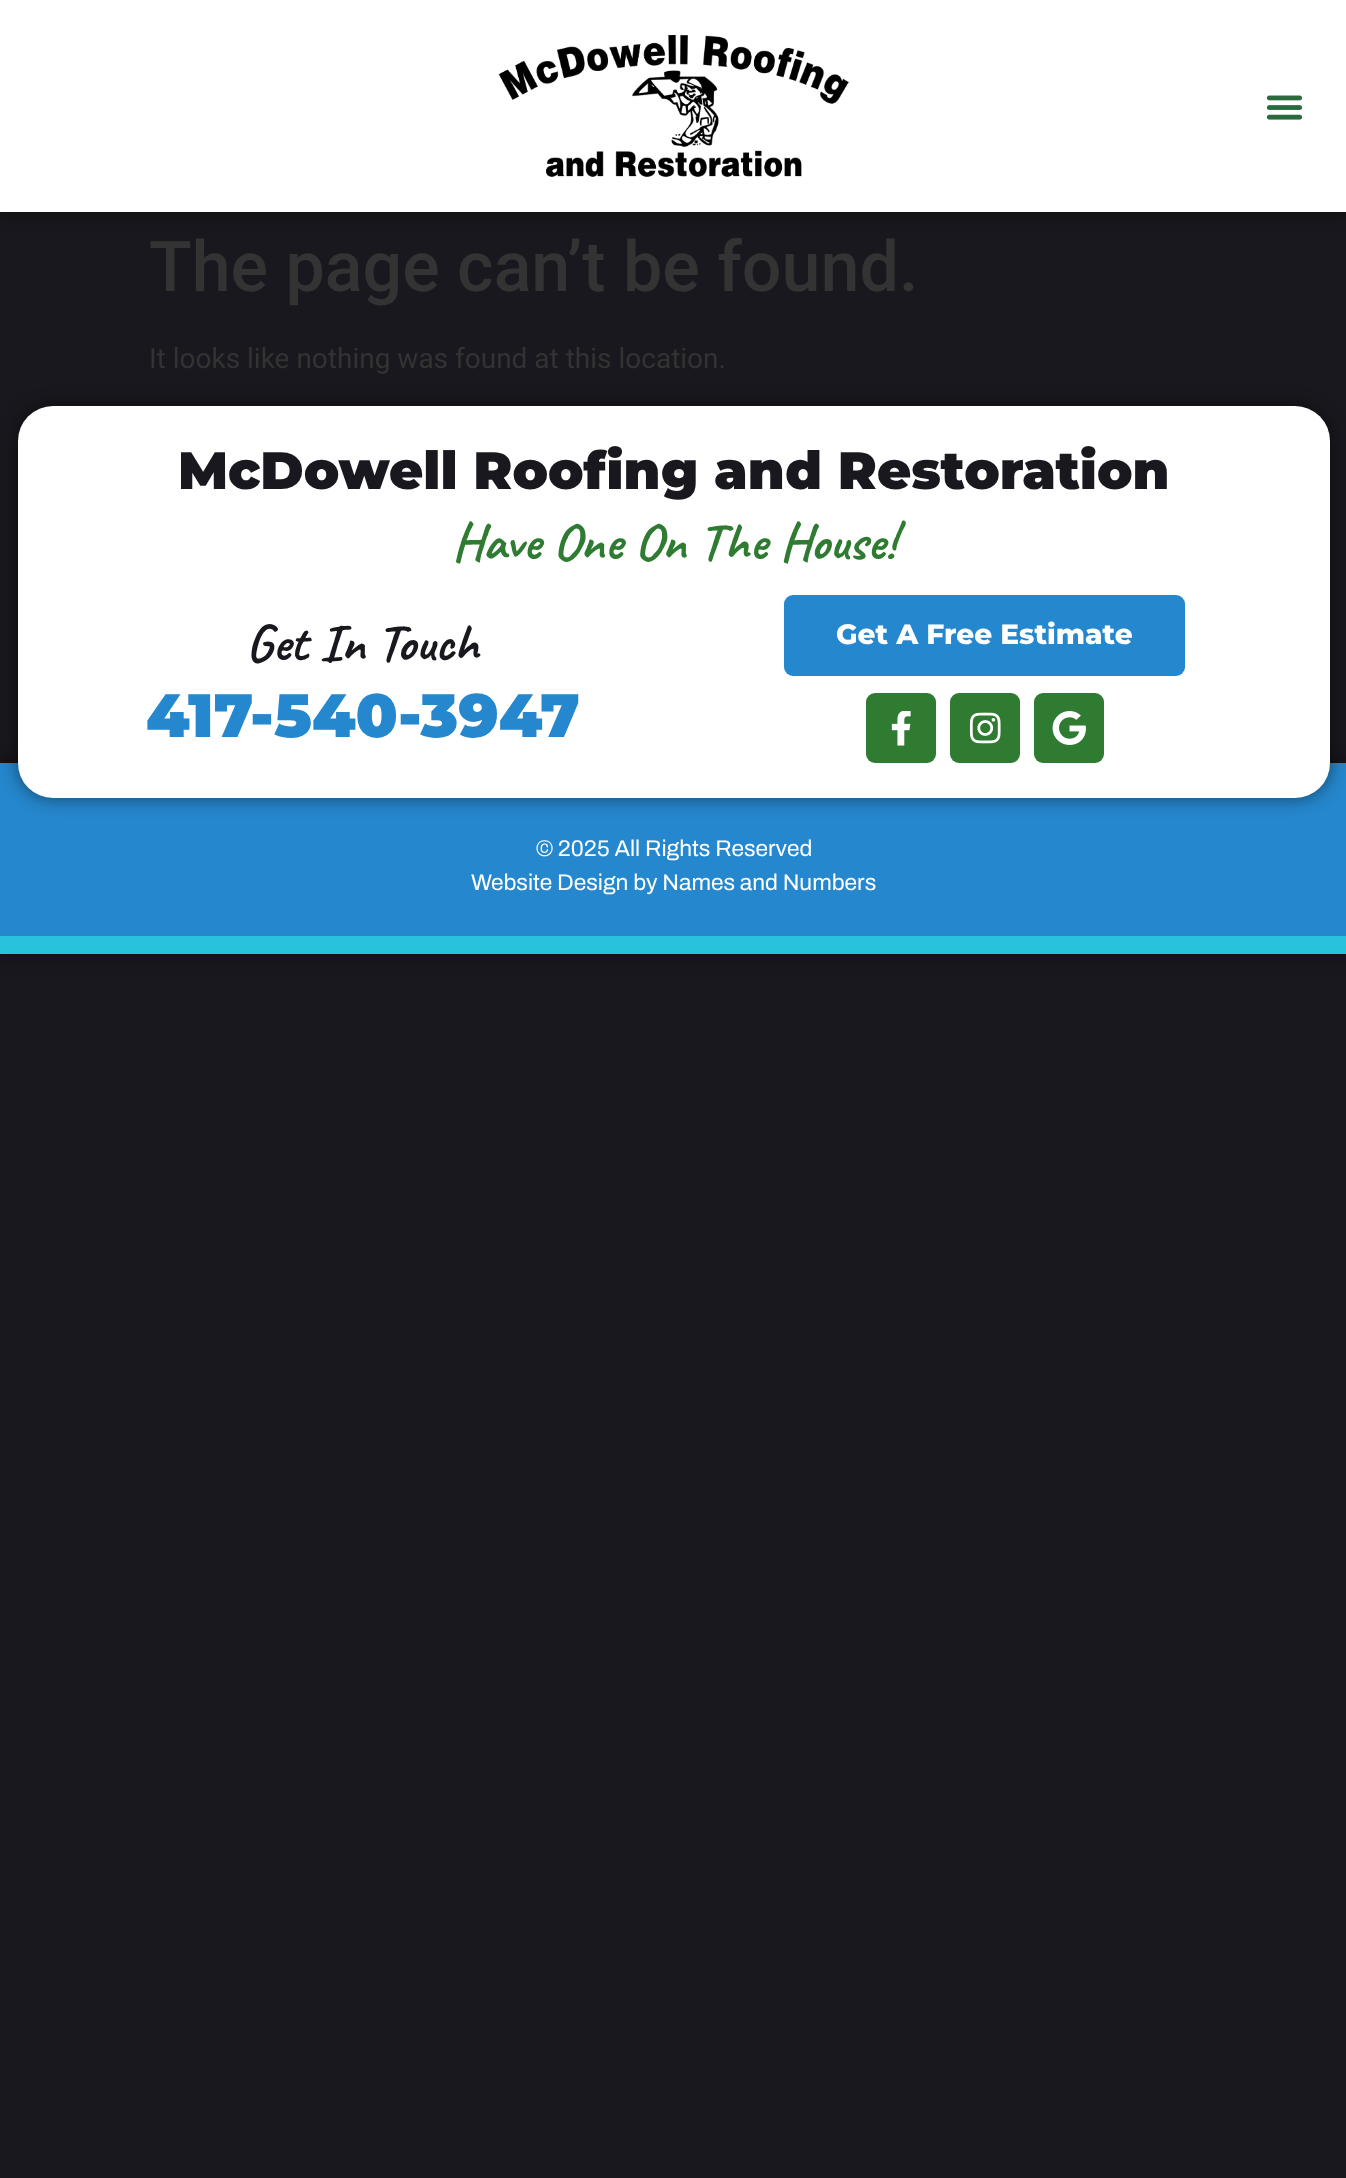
<svg xmlns="http://www.w3.org/2000/svg" width="1346" height="2178" viewBox="0 0 1346 2178">
  <style>
    .t1 { font: 500 70px Roboto; fill: #333; }
    .t2 { font: 28px Roboto; fill: #333; }
    .t3 { font: 900 52.5px Montserrat; fill: #19181e; }
    .t4 { font: bold 52.5px Caveat; letter-spacing: 0.2px; fill: #2f7b32; }
    .t5 { font: bold 52.5px Caveat; letter-spacing: 0.2px; fill: #19181e; }
    .t6 { font: 900 61.25px Montserrat; fill: #2587cd; }
    .t7 { font: 800 28px Montserrat; fill: #fff; }
    .t8 { font: 22.75px Archivo; fill: #fff; }
  </style>
  <rect width="100%" height="100%" fill="#19181e"/>
  <rect x="0" y="0" width="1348" height="212" fill="#00000080" filter="blur(9px)"/>
  <rect x="0" y="0" width="1346" height="212" fill="#fff"/>
  <image x="498" y="35" width="351" height="142" href="images/1.png"/>
  <image x="1266" y="95" width="37" height="25" href="images/2.png"/>
  <text x="149" y="291" class="t1">The page can’t be found.</text>
  <text x="149" y="368" class="t2">It looks like nothing was found at this location.</text>
  <rect x="0" y="763" width="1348" height="191" fill="#00000080" filter="blur(9px)"/>
  <rect x="0" y="763" width="1346" height="173" fill="#2587cd"/>
  <rect x="18" y="406" width="1312" height="392" rx="35" fill="#00000080" filter="blur(9px)"/>
  <rect x="18" y="406" width="1312" height="392" rx="35" fill="#fff"/>
  <text x="178" y="489" class="t3">McDowell Roofing and Restoration</text>
  <text x="452" y="559" class="t4">Have One On The House!</text>
  <text x="246" y="660" word-spacing="-1" class="t5">Get In Touch</text>
  <text x="146" y="737" class="t6">417-540-3947</text>
  <rect x="784" y="595" width="401" height="81" rx="9" fill="#2587cd"/>
  <text x="836" y="644" class="t7">Get A Free Estimate</text>
  <rect x="866" y="693" width="70" height="70" rx="9" fill="#2f7b32"/>
  <image x="891" y="711" width="20" height="35" href="images/3.png"/>
  <rect x="950" y="693" width="70" height="70" rx="9" fill="#2f7b32"/>
  <image x="969" y="712" width="32" height="32" href="images/4.png"/>
  <rect x="1034" y="693" width="70" height="70" rx="9" fill="#2f7b32"/>
  <image x="1052" y="711" width="34" height="34" href="images/5.png"/>
  <rect x="0" y="936" width="1346" height="18" fill="#28c2dc"/>
  <text x="536" y="856" class="t8">© 2025 All Rights Reserved</text>
  <text x="471" y="890" class="t8">Website Design by Names and Numbers</text>
</svg>
